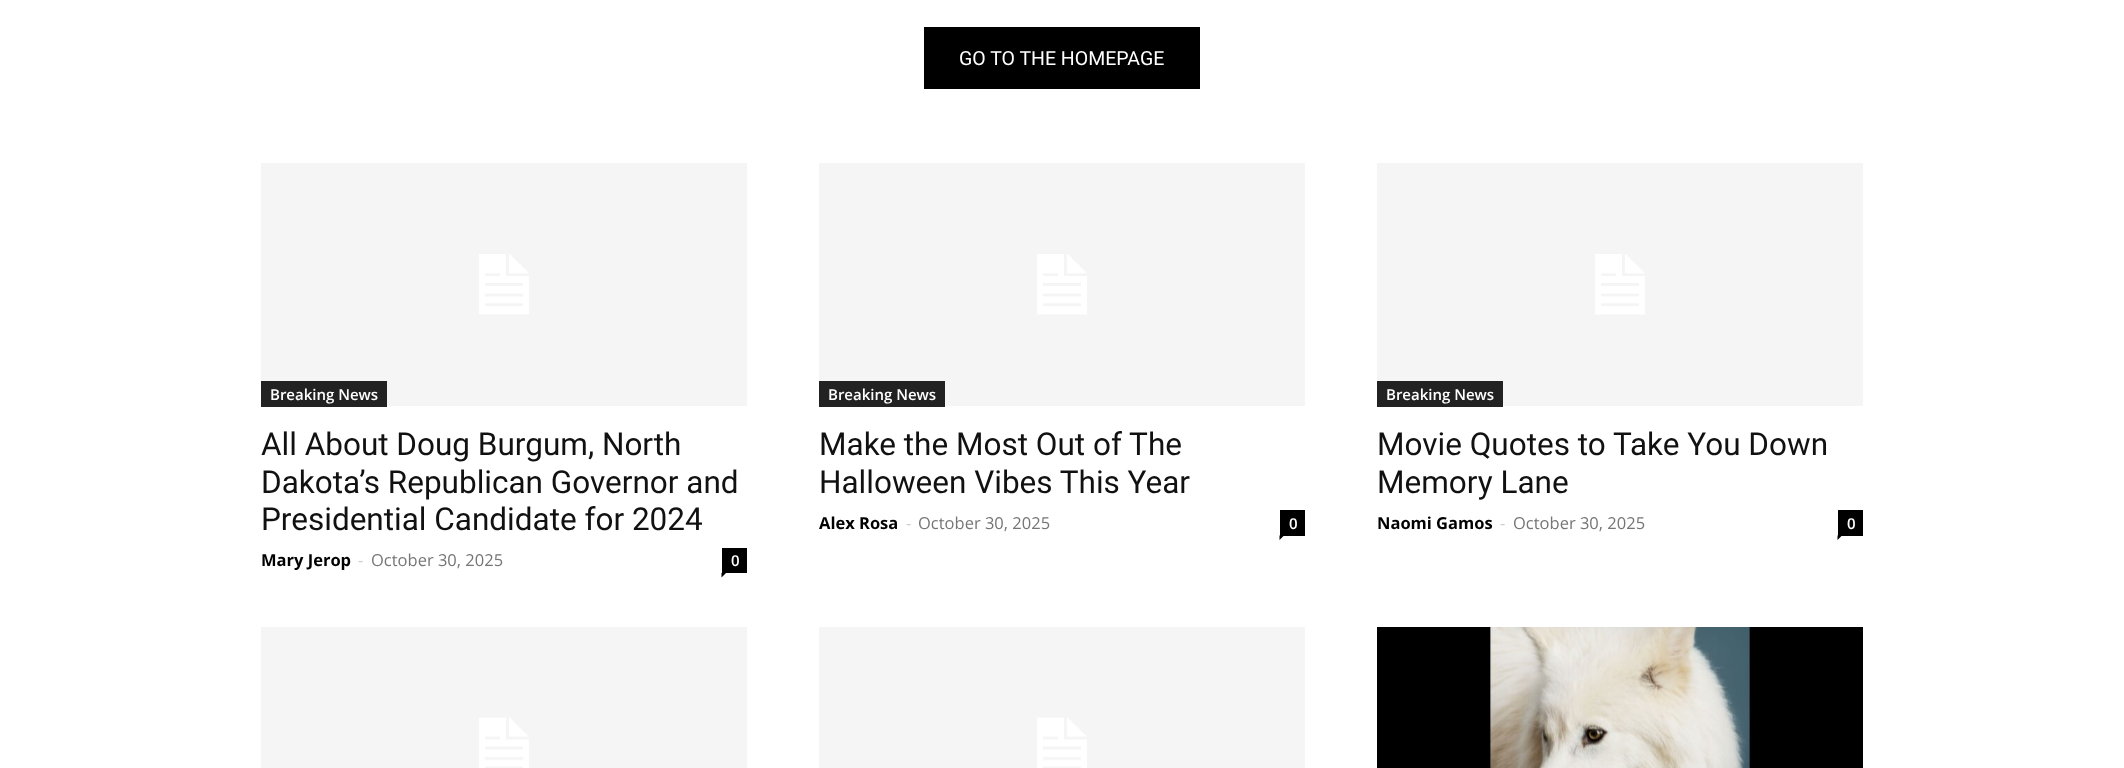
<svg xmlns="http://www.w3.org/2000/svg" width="2124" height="768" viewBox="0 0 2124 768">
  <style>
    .t1 { font: 19.5px Roboto; fill: #fff; }
    .t2 { font: 600 15px Open Sans; fill: #fff; }
    .t3 { font: 31.5px Roboto; fill: #111; }
    .t4 { font: bold 16.5px Open Sans; fill: #000; }
    .t5 { font: 16.5px Open Sans; fill: #ccc; }
    .t6 { font: 16.5px Open Sans; fill: #767676; }
  </style>
  <rect width="100%" height="100%" fill="#fff"/>
  <rect x="924" y="27" width="276" height="62" fill="#000"/>
  <text x="959" y="65" class="t1">GO TO THE HOMEPAGE</text>
  <image x="261" y="163" width="486" height="243" href="images/1.png"/>
  <rect x="261" y="381" width="126" height="26" fill="#222"/>
  <text x="270" y="400" class="t2">Breaking News</text>
  <text x="261" y="455" class="t3">All About Doug Burgum, North</text>
  <text x="261" y="493" class="t3">Dakota’s Republican Governor and</text>
  <text x="261" y="530" class="t3">Presidential Candidate for 2024</text>
  <text x="261" y="566" class="t4">Mary Jerop</text>
  <text x="358" y="566" class="t5">-</text>
  <text x="371" y="566" class="t6">October 30, 2025</text>
  <rect x="722" y="548" width="25" height="25" fill="#000"/>
  <text x="731" y="566" class="t2">0</text>
  <path d="M721.5 573H726L721.5 577.5Z" fill="#000"/>
  <image x="819" y="163" width="486" height="243" href="images/1.png"/>
  <rect x="819" y="381" width="126" height="26" fill="#222"/>
  <text x="828" y="400" class="t2">Breaking News</text>
  <text x="819" y="455" class="t3">Make the Most Out of The</text>
  <text x="819" y="493" class="t3">Halloween Vibes This Year</text>
  <text x="819" y="529" class="t4">Alex Rosa</text>
  <text x="906" y="529" class="t5">-</text>
  <text x="918" y="529" class="t6">October 30, 2025</text>
  <rect x="1280" y="510" width="25" height="26" fill="#000"/>
  <text x="1289" y="529" class="t2">0</text>
  <path d="M1279.5 535.5H1284L1279.5 540Z" fill="#000"/>
  <image x="1377" y="163" width="486" height="243" href="images/1.png"/>
  <rect x="1377" y="381" width="126" height="26" fill="#222"/>
  <text x="1386" y="400" class="t2">Breaking News</text>
  <text x="1377" y="455" class="t3">Movie Quotes to Take You Down</text>
  <text x="1377" y="493" class="t3">Memory Lane</text>
  <text x="1377" y="529" class="t4">Naomi Gamos</text>
  <text x="1500" y="529" class="t5">-</text>
  <text x="1513" y="529" class="t6">October 30, 2025</text>
  <rect x="1838" y="510" width="25" height="26" fill="#000"/>
  <text x="1847" y="529" class="t2">0</text>
  <path d="M1837.5 535.5H1842L1837.5 540Z" fill="#000"/>
  <image x="261" y="627" width="486" height="141" href="images/2.png"/>
  <image x="819" y="627" width="486" height="141" href="images/2.png"/>
  <image x="1377" y="627" width="486" height="141" href="images/3.png"/>
</svg>
